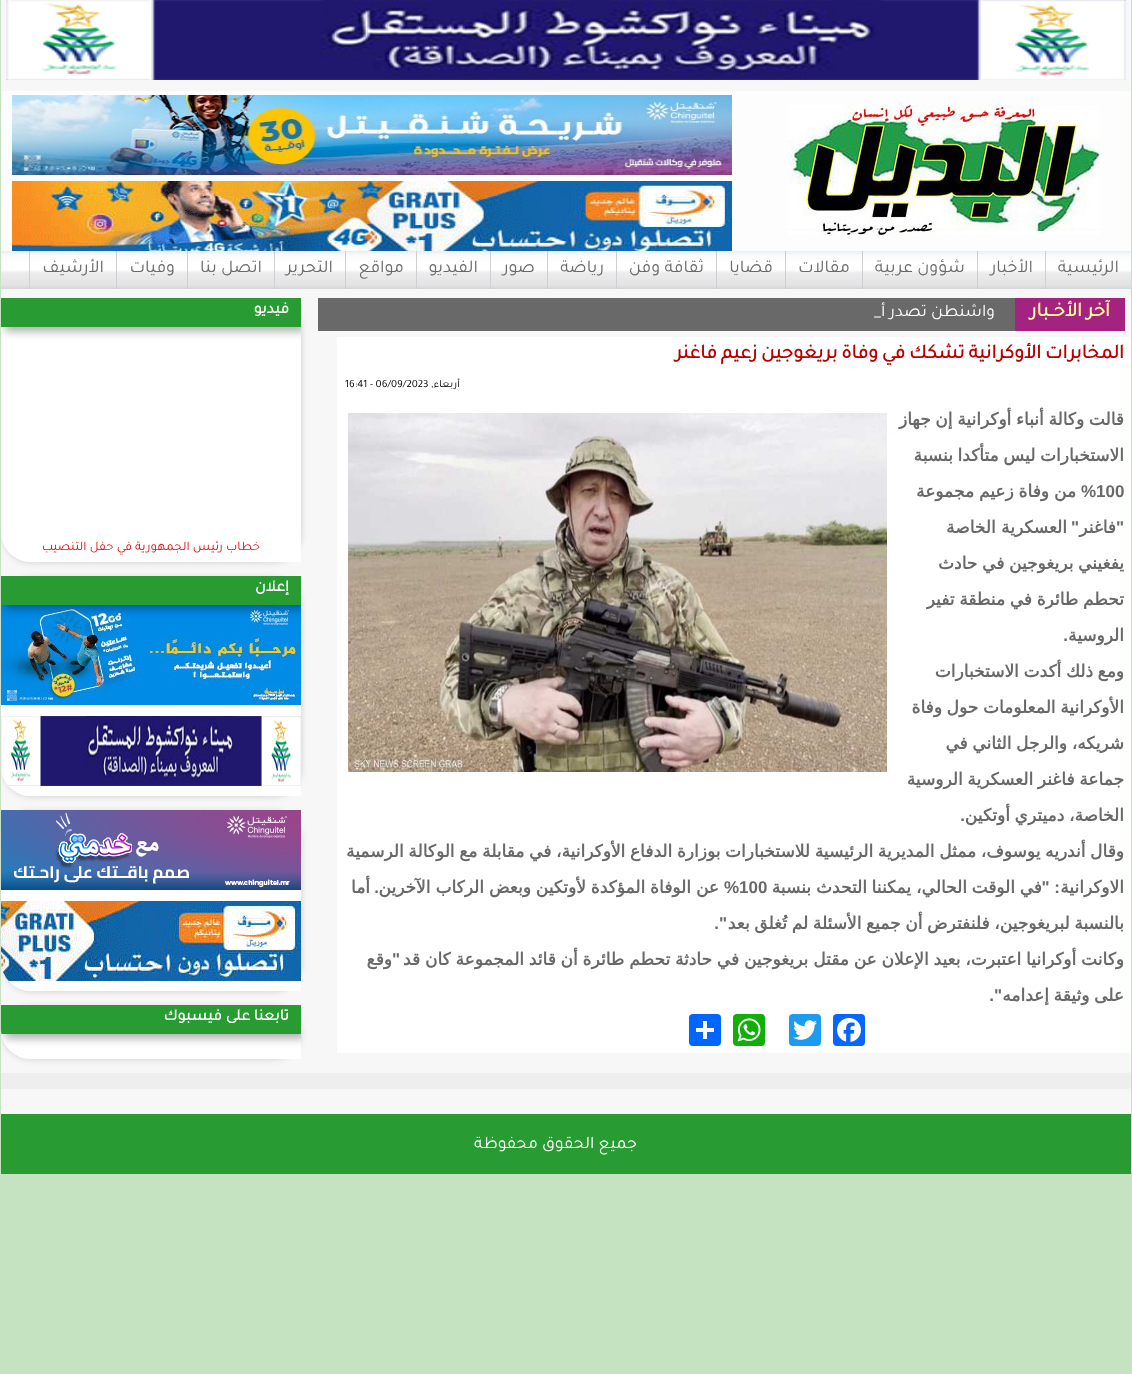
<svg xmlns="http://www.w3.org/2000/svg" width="1132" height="1374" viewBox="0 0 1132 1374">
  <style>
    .t1 { font: 18px Tajawal; direction: rtl; fill: #696969; }
    .t2 { font: bold 20px Tajawal; direction: rtl; fill: #fffd99; }
    .t3 { font: 17.5px Tajawal; direction: rtl; fill: #fff; }
    .t4 { font: bold 16px Tajawal; direction: rtl; fill: #fff; }
    .t5 { font: 13px Tajawal; direction: rtl; fill: #e60a0a; }
    .t6 { font: bold 20px Tajawal; direction: rtl; fill: #ba0000; }
    .t7 { font: 11px Tajawal; direction: rtl; fill: #000; }
    .t8 { font: 11px Tajawal; fill: #000; }
    .t9 { font: bold 17px DejaVu Sans; direction: rtl; fill: #696969; }
    .t10 { font: bold 17px Liberation Sans; fill: #696969; }
    .t11 { font: bold 17px Liberation Sans; direction: rtl; fill: #696969; }
  </style>
  <defs>
    <clipPath id="clip1"><rect x="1" y="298" width="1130" height="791"/></clipPath>
    <clipPath id="clip2"><path d="M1 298H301V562H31C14.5 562 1 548.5 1 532Z"/></clipPath>
    <clipPath id="clip3"><path d="M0 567H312V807H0ZM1 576H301V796H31C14.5 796 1 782.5 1 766Z" clip-rule="evenodd"/></clipPath>
    <clipPath id="clip4"><path d="M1 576H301V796H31C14.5 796 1 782.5 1 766Z"/></clipPath>
    <clipPath id="clip5"><path d="M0 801H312V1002H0ZM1 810H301V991H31C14.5 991 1 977.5 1 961Z" clip-rule="evenodd"/></clipPath>
    <clipPath id="clip6"><path d="M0 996H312V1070H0ZM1 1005H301V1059H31C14.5 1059 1 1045.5 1 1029Z" clip-rule="evenodd"/></clipPath>
    <clipPath id="clip7"><path d="M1 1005H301V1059H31C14.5 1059 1 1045.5 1 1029Z"/></clipPath>
    <clipPath id="clip8"><path d="M1 1005H301V1059H31C14.5 1059 1 1045.5 1 1029Z"/></clipPath>
    <clipPath id="clip9"><rect x="337" y="337" width="794" height="716"/></clipPath>
  </defs>
  <rect width="100%" height="100%" fill="#c5e2c1"/>
  <rect x="1" y="0" width="1130" height="1114" fill="#f7f7f7"/>
  <image x="6" y="0" width="1120" height="80" href="images/1.png"/>
  <rect x="1" y="91" width="1130" height="160" fill="#fdfdfd"/>
  <image x="788" y="105" width="312" height="130" href="images/2.png"/>
  <image x="12" y="95" width="720" height="80" href="images/3.png"/>
  <image x="12" y="181" width="720" height="70" href="images/4.png"/>
  <image x="1" y="251" width="1130" height="38" href="images/5.png"/>
  <rect x="1045" y="251" width="1" height="38" fill="#cecfd2"/>
  <text x="1119" y="272" class="t1">الرئيسية</text>
  <rect x="977" y="251" width="1" height="38" fill="#cecfd2"/>
  <text x="1033" y="272" class="t1">الأخبار</text>
  <rect x="862" y="251" width="1" height="38" fill="#cecfd2"/>
  <text x="965" y="272" class="t1">شؤون عربية</text>
  <rect x="785" y="251" width="1" height="38" fill="#cecfd2"/>
  <text x="850" y="272" class="t1">مقالات</text>
  <rect x="716" y="251" width="1" height="38" fill="#cecfd2"/>
  <text x="773" y="272" class="t1">قضايا</text>
  <rect x="616" y="251" width="1" height="38" fill="#cecfd2"/>
  <text x="704" y="272" class="t1">ثقافة وفن</text>
  <rect x="547" y="251" width="1" height="38" fill="#cecfd2"/>
  <text x="604" y="272" class="t1">رياضة</text>
  <rect x="490" y="251" width="1" height="38" fill="#cecfd2"/>
  <text x="535" y="272" class="t1">صور</text>
  <rect x="416" y="251" width="1" height="38" fill="#cecfd2"/>
  <text x="478" y="272" class="t1">الفيديو</text>
  <rect x="345" y="251" width="1" height="38" fill="#cecfd2"/>
  <text x="404" y="272" class="t1">مواقع</text>
  <rect x="274" y="251" width="1" height="38" fill="#cecfd2"/>
  <text x="333" y="272" class="t1">التحرير</text>
  <rect x="187" y="251" width="1" height="38" fill="#cecfd2"/>
  <text x="262" y="272" class="t1">اتصل بنا</text>
  <rect x="116" y="251" width="1" height="38" fill="#cecfd2"/>
  <text x="175" y="272" class="t1">وفيات</text>
  <rect x="29" y="251" width="1" height="38" fill="#cecfd2"/>
  <text x="104" y="272" class="t1">الأرشيف</text>
  <g clip-path="url(#clip1)">
    <rect x="1" y="298" width="302" height="266" rx="31" fill="#ddd" filter="blur(2.5px)"/>
  </g>
  <path d="M1 298H301V562H31C14.5 562 1 548.5 1 532Z" fill="#fff"/>
  <g clip-path="url(#clip2)">
    <rect x="5" y="302" width="300" height="29" fill="#00000057" filter="blur(5px)"/>
  </g>
  <rect x="318" y="298" width="697" height="33" fill="#696969"/>
  <rect x="1015" y="298" width="110" height="33" fill="#a52380"/>
  <text x="1110" y="316" class="t2">آخر الأخــبار</text>
  <text x="995" y="316" class="t3">واشنطن تصدر أ_</text>
  <rect x="1" y="298" width="300" height="29" fill="#289c32"/>
  <text x="289" y="313" class="t4">فيديو</text>
  <text x="260" y="550" class="t5">خطاب رئيس الجمهورية في حفل التنصيب</text>
  <g clip-path="url(#clip3)">
    <rect x="1" y="576" width="302" height="222" rx="31" fill="#ddd" filter="blur(2.5px)"/>
  </g>
  <path d="M1 576H301V796H31C14.5 796 1 782.5 1 766Z" fill="#fff"/>
  <image x="1" y="605" width="300" height="100" href="images/6.png"/>
  <g clip-path="url(#clip4)">
    <rect x="5" y="580" width="300" height="29" fill="#00000057" filter="blur(5px)"/>
  </g>
  <rect x="1" y="576" width="300" height="29" fill="#289c32"/>
  <text x="289" y="591" class="t4">إعلان</text>
  <image x="1" y="716" width="300" height="70" href="images/7.png"/>
  <g clip-path="url(#clip5)">
    <rect x="1" y="810" width="302" height="183" rx="31" fill="#ddd" filter="blur(2.5px)"/>
  </g>
  <path d="M1 810H301V991H31C14.5 991 1 977.5 1 961Z" fill="#fff"/>
  <image x="1" y="810" width="300" height="80" href="images/8.png"/>
  <image x="1" y="901" width="300" height="80" href="images/9.png"/>
  <g clip-path="url(#clip6)">
    <rect x="1" y="1005" width="302" height="56" rx="31" fill="#ddd" filter="blur(2.5px)"/>
  </g>
  <path d="M1 1005H301V1059H31C14.5 1059 1 1045.5 1 1029Z" fill="#fff"/>
  <g clip-path="url(#clip7)">
    <rect x="5" y="1009" width="300" height="29" fill="#00000057" filter="blur(5px)"/>
  </g>
  <g clip-path="url(#clip8)">
    <rect x="1" y="1005" width="300" height="29" fill="#289c32"/>
  </g>
  <text x="289" y="1020" class="t4">تابعنا على فيسبوك</text>
  <rect x="337" y="337" width="794" height="716" fill="#fff"/>
  <text x="1124" y="358" word-spacing="-1" class="t6">المخابرات الأوكرانية تشكك في وفاة بريغوجين زعيم فاغنر</text>
  <text x="460" y="387" class="t7">أربعاء,</text>
  <text x="345" y="387" class="t8">16:41 - 06/09/2023</text>
  <text x="1124" y="425" word-spacing="-0.75" class="t9">قالت وكالة أنباء أوكرانية إن جهاز</text>
  <text x="1124" y="461" word-spacing="-0.75" class="t9">الاستخبارات ليس متأكدا بنسبة</text>
  <text x="1096" y="497" class="t10">100</text>
  <text x="1096" y="497" class="t11">%</text>
  <text x="1076" y="497" word-spacing="-0.5" class="t9">من وفاة زعيم مجموعة</text>
  <text x="1124" y="533" class="t11">"</text>
  <text x="1079" y="533" class="t11">"</text>
  <text x="1116" y="533" class="t9">فاغنر</text>
  <text x="1067" y="533" class="t9">العسكرية الخاصة</text>
  <text x="1124" y="569" word-spacing="-0.75" class="t9">يفغيني بريغوجين في حادث</text>
  <text x="1124" y="605" word-spacing="-0.75" class="t9">تحطم طائرة في منطقة تفير</text>
  <text x="1124" y="641" class="t9">الروسية</text>
  <text x="1068" y="641" class="t11">.</text>
  <text x="1124" y="677" word-spacing="-0.75" class="t9">ومع ذلك أكدت الاستخبارات</text>
  <text x="1124" y="713" word-spacing="-0.75" class="t9">الأوكرانية المعلومات حول وفاة</text>
  <text x="1124" y="749" word-spacing="-0.75" class="t9">شريكه، والرجل الثاني في</text>
  <text x="1124" y="785" word-spacing="-0.75" class="t9">جماعة فاغنر العسكرية الروسية</text>
  <text x="1124" y="821" word-spacing="-0.75" class="t9">الخاصة، دميتري أوتكين</text>
  <text x="965" y="821" class="t11">.</text>
  <g clip-path="url(#clip9)">
    <text x="1124" y="857" word-spacing="-0.75" class="t9">وقال أندريه يوسوف، ممثل المديرية الرئيسية للاستخبارات بوزارة الدفاع الأوكرانية، في مقابلة مع الوكالة الرسمية</text>
  </g>
  <text x="1124" y="893" class="t9">الاوكرانية</text>
  <text x="1060" y="893" class="t11">: "</text>
  <text x="1042" y="893" class="t9">في</text>
  <text x="1015" y="893" class="t9">الوقت</text>
  <text x="967" y="893" class="t9">الحالي،</text>
  <text x="911" y="893" class="t9">يمكننا</text>
  <text x="867" y="893" class="t9">التحدث</text>
  <text x="811" y="893" class="t9">بنسبة</text>
  <text x="739" y="893" class="t10">100</text>
  <text x="739" y="893" class="t11">%</text>
  <text x="719" y="893" word-spacing="-0.5" class="t9">عن الوفاة المؤكدة لأوتكين وبعض الركاب الآخرين</text>
  <text x="379" y="893" class="t11">.</text>
  <text x="370" y="893" class="t9">أما</text>
  <text x="1124" y="929" word-spacing="-0.75" class="t9">بالنسبة لبريغوجين، فلنفترض أن جميع الأسئلة لم تُغلق بعد</text>
  <text x="727" y="929" class="t11">".</text>
  <g clip-path="url(#clip9)">
    <text x="1124" y="965" word-spacing="-0.6" class="t9">وكانت أوكرانيا اعتبرت، بعيد الإعلان عن مقتل بريغوجين في حادثة تحطم طائرة أن قائد المجموعة كان قد</text>
  </g>
  <text x="400" y="965" class="t11">"</text>
  <text x="392" y="965" class="t9">وقع</text>
  <text x="1124" y="1001" word-spacing="-0.75" class="t9">على وثيقة إعدامه</text>
  <text x="1002" y="1001" class="t11">".</text>
  <image x="348" y="413" width="539" height="359" href="images/10.png"/>
  <rect x="833" y="1014" width="32" height="32" rx="4" fill="#0866ff"/>
  <image x="837" y="1018" width="24" height="24" href="images/11.png"/>
  <rect x="789" y="1014" width="32" height="32" rx="4" fill="#1d9bf0"/>
  <image x="793" y="1020" width="24" height="20" href="images/12.png"/>
  <rect x="733" y="1014" width="32" height="32" rx="4" fill="#12af0a"/>
  <image x="737" y="1018" width="24" height="24" href="images/13.png"/>
  <rect x="689" y="1014" width="32" height="32" rx="4" fill="#0166ff"/>
  <rect x="703" y="1021" width="4" height="18" fill="#fff"/>
  <rect x="696" y="1028" width="18" height="4" fill="#fff"/>
  <rect x="1" y="1073" width="1130" height="16" fill="#eee"/>
  <rect x="1" y="1114" width="1130" height="60" fill="#289c32"/>
  <text x="637" y="1148" class="t3">جميع الحقوق محفوظة</text>
</svg>
